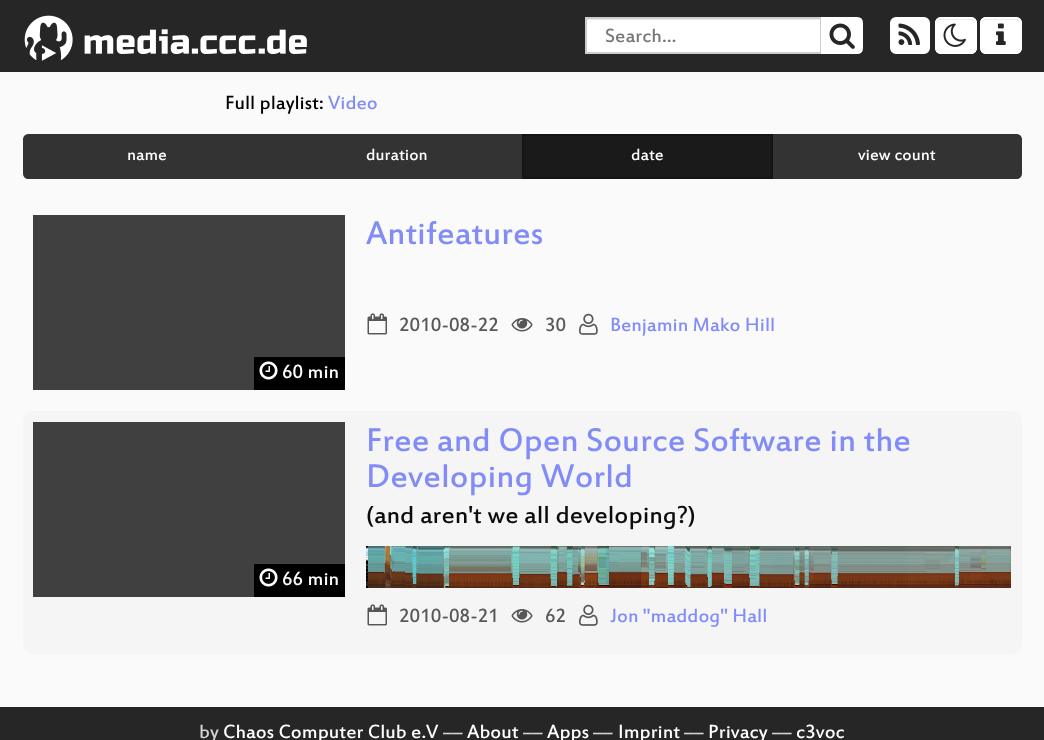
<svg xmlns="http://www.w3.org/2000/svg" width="1044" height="740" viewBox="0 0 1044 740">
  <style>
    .t1 { font: 21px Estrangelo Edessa; fill: #777; }
    .t2 { font: 21px Estrangelo Edessa; fill: #000; }
    .t3 { font: 21px Estrangelo Edessa; fill: #818cf8; }
    .t4 { font: 18px Estrangelo Edessa; fill: #fff; }
    .t5 { font: 36px Estrangelo Edessa; fill: #818cf8; }
    .t6 { font: 21px Estrangelo Edessa; fill: #585858; }
    .t7 { font: 21px Estrangelo Edessa; fill: #fff; }
    .t8 { font: 27px Estrangelo Edessa; fill: #0c0c0c; }
    .t9 { font: 21px Estrangelo Edessa; fill: #d4d4d4; }
  </style>
  <rect width="100%" height="100%" fill="#fafafa"/>
  <rect x="0" y="0" width="1044" height="72" fill="#262626"/>
  <image x="24" y="15" width="283" height="46" href="images/1.png"/>
  <rect x="587" y="20" width="233" height="32" fill="#fff"/>
  <rect x="587" y="19" width="234" height="1" fill="#ececec"/>
  <rect x="586" y="18" width="235" height="35" fill="none" stroke="#ccc" stroke-width="2"/>
  <text x="605" y="42" class="t1">Search…</text>
  <path d="M822 18H857C860 18 862 20 862 23V48C862 51 860 53 857 53H822Z" fill="#fff" stroke="#fff" stroke-width="2"/>
  <image x="829" y="23" width="26" height="26" href="images/2.png"/>
  <rect x="891" y="18" width="38" height="35" rx="5" fill="#fff" stroke="#fff" stroke-width="2"/>
  <image x="898" y="23" width="22" height="22" href="images/3.png"/>
  <rect x="935" y="17" width="42" height="37" rx="6" fill="#fff"/>
  <path d="M940 20H966C972.5 20 974.5 20.5 975 23.5V23C975 20 973 18 970 18H941C938 18 936 20 936 23V28C936 25 936 20 940 20ZM936 49.5V45Z" fill="#ececec" fill-rule="evenodd"/>
  <rect x="936" y="18" width="40" height="35" rx="5" fill="none" stroke="#fff" stroke-width="2"/>
  <image x="943" y="23" width="23" height="24" href="images/4.png"/>
  <rect x="980" y="17" width="42" height="37" rx="6" fill="#fff"/>
  <path d="M986 20H1010C1017.5 20 1019.5 21 1020 24V23C1020 20 1018 18 1015 18H986C983 18 981 20 981 23V28C981 25 981 20 986 20ZM981 49V45Z" fill="#ececec" fill-rule="evenodd"/>
  <rect x="981" y="18" width="40" height="35" rx="5" fill="none" stroke="#fff" stroke-width="2"/>
  <image x="996" y="23" width="10" height="22" href="images/5.png"/>
  <text x="225" y="109" class="t2">Full playlist:</text>
  <text x="328" y="109" class="t3">Video</text>
  <path d="M28 135H272V178H28C26 178 24 176 24 174V139C24 137 26 135 28 135Z" fill="#333" stroke="#333" stroke-width="2"/>
  <text x="127" y="160" class="t4">name</text>
  <rect x="273" y="134" width="249" height="45" fill="#333"/>
  <text x="366" y="160" class="t4">duration</text>
  <rect x="523" y="135" width="249" height="43" fill="#1a1a1a" stroke="#141414" stroke-width="2"/>
  <text x="631" y="160" class="t4">date</text>
  <path d="M774 135H1017C1019 135 1021 137 1021 139V174C1021 176 1019 178 1017 178H774Z" fill="#333" stroke="#333" stroke-width="2"/>
  <text x="858" y="160" class="t4">view count</text>
  <text x="366" y="244" class="t5">Antifeatures</text>
  <image x="367" y="313" width="20" height="22" href="images/6.png"/>
  <text x="399" y="331" class="t6">2010-08-22</text>
  <image x="511" y="318" width="22" height="14" href="images/7.png"/>
  <text x="545" y="331" class="t6">30</text>
  <image x="579" y="313" width="19" height="22" href="images/8.png"/>
  <text x="610" y="331" class="t3">Benjamin Mako Hill</text>
  <rect x="33" y="215" width="312" height="175" fill="#404040"/>
  <rect x="254" y="357" width="91" height="33" fill="#000"/>
  <image x="259" y="361" width="19" height="19" href="images/9.png"/>
  <text x="282" y="378" class="t7">60 min</text>
  <rect x="23" y="411" width="999" height="243" rx="11" fill="#f5f5f5"/>
  <rect x="33" y="422" width="312" height="175" fill="#404040"/>
  <rect x="254" y="564" width="91" height="33" fill="#000"/>
  <image x="259" y="568" width="19" height="19" href="images/9.png"/>
  <text x="282" y="585" class="t7">66 min</text>
  <text x="366" y="451" class="t5">Free and Open Source Software in the</text>
  <text x="366" y="487" class="t5">Developing World</text>
  <text x="366" y="523" class="t8">(and aren't we all developing?)</text>
  <image x="366" y="546" width="645" height="42" href="images/10.png"/>
  <image x="367" y="604" width="20" height="22" href="images/11.png"/>
  <text x="399" y="622" class="t6">2010-08-21</text>
  <image x="511" y="609" width="22" height="14" href="images/12.png"/>
  <text x="545" y="622" class="t6">62</text>
  <image x="579" y="604" width="19" height="22" href="images/13.png"/>
  <text x="610" y="622" class="t3">Jon "maddog" Hall</text>
  <rect x="0" y="707" width="1044" height="33" fill="#262626"/>
  <text x="199" y="738" class="t9">by</text>
  <text x="223" y="738" class="t7">Chaos Computer Club e.V</text>
  <text x="443" y="738" class="t9">––</text>
  <text x="467" y="738" class="t7">About</text>
  <text x="523" y="738" class="t9">––</text>
  <text x="547" y="738" class="t7">Apps</text>
  <text x="593" y="738" class="t9">––</text>
  <text x="618" y="738" class="t7">Imprint</text>
  <text x="684" y="738" class="t9">––</text>
  <text x="708" y="738" class="t7">Privacy</text>
  <text x="772" y="738" class="t9">––</text>
  <text x="796" y="738" class="t7">c3voc</text>
</svg>
